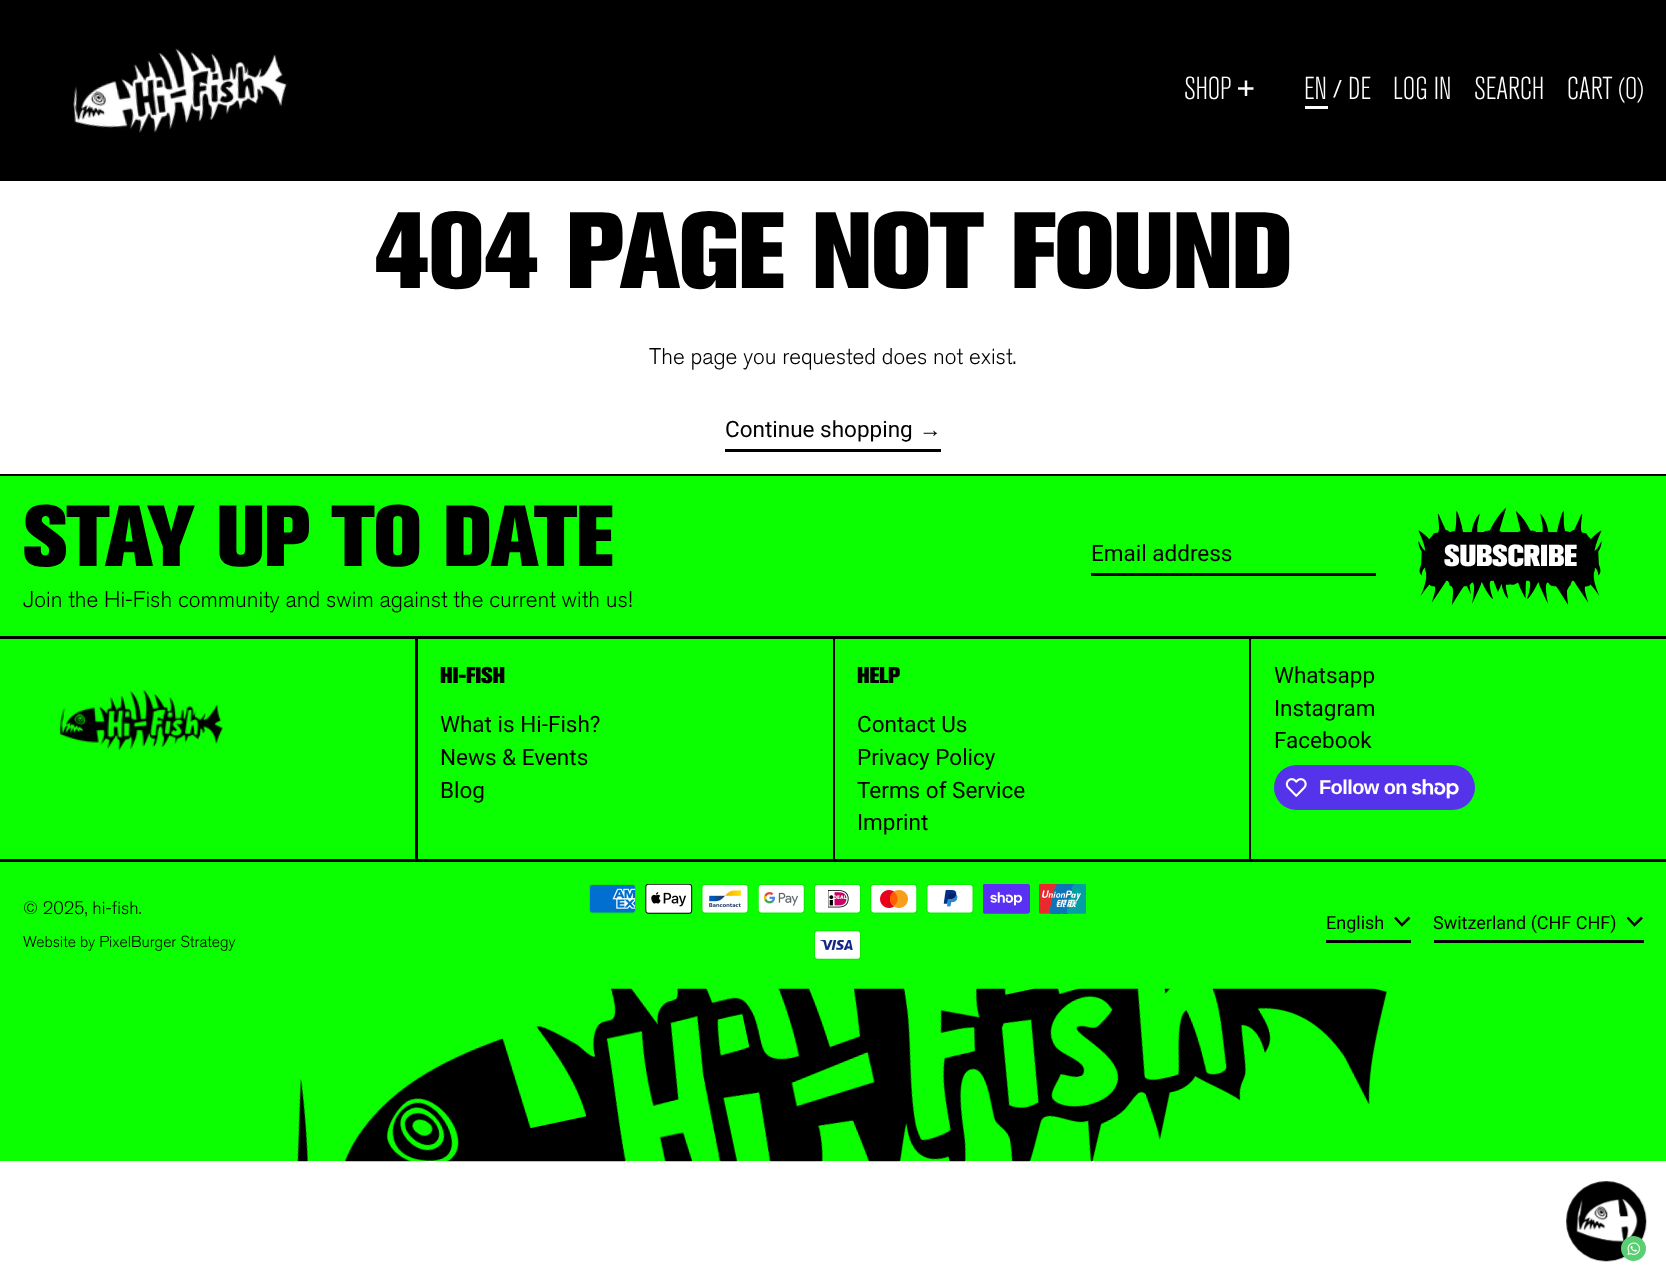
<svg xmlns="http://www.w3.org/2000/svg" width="1666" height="1281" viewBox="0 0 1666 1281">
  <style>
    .t1 { font: 300 31.5px 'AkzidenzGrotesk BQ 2'; letter-spacing: -0.25px; fill: #fff; }
    .t2 { font: 300 31.5px 'AkzidenzGrotesk BQ 2'; fill: #fff; }
    .t3 { font: 22.5px Roboto; fill: #fff; }
    .t4 { font: bold 107.25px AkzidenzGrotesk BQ; letter-spacing: -1.1px; fill: #000; }
    .t5 { font: 300 22.5px AkzidenzGrotesk BQ; fill: #000; }
    .t6 { font: 22.5px Roboto; fill: #000; }
    .t7 { font: 22.5px Liberation Sans; fill: #000; }
    .t8 { font: bold 85.75px AkzidenzGrotesk BQ; letter-spacing: -0.9px; fill: #000; }
    .t9 { font: bold 30px AkzidenzGrotesk BQ; letter-spacing: -0.25px; fill: #fff; }
    .t10 { font: bold 22.5px AkzidenzGrotesk BQ; letter-spacing: -0.25px; fill: #000; }
    .t11 { font: bold 20px Liberation Sans; letter-spacing: -0.6px; fill: #fff; }
    .t12 { font: 300 18px AkzidenzGrotesk BQ; fill: #000; }
    .t13 { font: 300 15.75px AkzidenzGrotesk BQ; fill: #000; }
    .t14 { font: 18px Roboto; fill: #000; }
  </style>
  <rect width="100%" height="100%" fill="#fff"/>
  <rect x="0" y="0" width="1666" height="181" fill="#000"/>
  <image x="73" y="48" width="214" height="85" href="images/1.png"/>
  <text x="1184" y="99" class="t1">SHOP</text>
  <path d="M1246 80.5V96M1238 88.5H1253.5" fill="none" stroke="#fcfcfc" stroke-width="2.5"/>
  <text x="1304" y="99" class="t2">EN</text>
  <rect x="1305" y="106" width="23" height="3" fill="#fcfcfc"/>
  <text x="1333" y="96" class="t3">/</text>
  <text x="1348" y="99" class="t2">DE</text>
  <text x="1393" y="99" class="t2">LOG IN</text>
  <text x="1474" y="99" class="t2">SEARCH</text>
  <text x="1567" y="99" class="t2">CART (0)</text>
  <rect x="0" y="474" width="1666" height="2" fill="#000"/>
  <text x="374" y="288" class="t4">404 PAGE NOT FOUND</text>
  <text x="649" y="364" class="t5">The page you requested does not exist.</text>
  <rect x="725" y="449" width="216" height="3" fill="#000"/>
  <text x="725" y="437" class="t6">Continue shopping</text>
  <text x="919" y="437" class="t7">→</text>
  <rect x="0" y="476" width="1666" height="685" fill="#0cff00"/>
  <rect x="0" y="636" width="1666" height="3" fill="#000"/>
  <text x="23" y="566" class="t8">STAY UP TO DATE</text>
  <text x="23" y="607" class="t5">Join the Hi-Fish community and swim against the current with us!</text>
  <rect x="1091" y="573" width="285" height="3" fill="#000"/>
  <text x="1091" y="561" class="t6">Email address</text>
  <image x="1418" y="507" width="184" height="98" href="images/2.png"/>
  <text x="1444" y="566" class="t9">SUBSCRIBE</text>
  <rect x="0" y="859" width="1666" height="3" fill="#000"/>
  <rect x="415" y="639" width="836" height="220" fill="#000"/>
  <image x="59" y="690" width="164" height="61" href="images/3.png"/>
  <rect x="418" y="639" width="415" height="220" fill="#0cff00"/>
  <text x="440" y="683" class="t10">HI-FISH</text>
  <text x="440" y="732" class="t6">What is Hi-Fish?</text>
  <text x="440" y="765" class="t6">News &amp; Events</text>
  <text x="440" y="798" class="t6">Blog</text>
  <rect x="835" y="639" width="414" height="220" fill="#0cff00"/>
  <text x="857" y="683" class="t10">HELP</text>
  <text x="857" y="732" class="t6">Contact Us</text>
  <text x="857" y="765" class="t6">Privacy Policy</text>
  <text x="857" y="798" class="t6">Terms of Service</text>
  <text x="857" y="830" class="t6">Imprint</text>
  <text x="1274" y="683" class="t6">Whatsapp</text>
  <text x="1274" y="716" class="t6">Instagram</text>
  <text x="1274" y="748" class="t6">Facebook</text>
  <rect x="1274" y="765" width="201" height="45" rx="22.5" fill="#5433eb"/>
  <image x="1285" y="778" width="22" height="19" href="images/4.png"/>
  <text x="1319" y="794" class="t11">Follow on</text>
  <image x="1411" y="779" width="48" height="20" href="images/5.png"/>
  <text x="23" y="914" class="t12">© 2025, hi-fish.</text>
  <text x="23" y="947" class="t13">Website by PixelBurger Strategy</text>
  <image x="589" y="884" width="47" height="30" href="images/6.png"/>
  <image x="645" y="884" width="48" height="30" href="images/7.png"/>
  <image x="701" y="884" width="48" height="30" href="images/8.png"/>
  <image x="758" y="884" width="47" height="30" href="images/9.png"/>
  <image x="814" y="884" width="47" height="30" href="images/10.png"/>
  <image x="870" y="884" width="48" height="30" href="images/11.png"/>
  <image x="926" y="884" width="48" height="30" href="images/12.png"/>
  <image x="983" y="884" width="47" height="30" href="images/13.png"/>
  <image x="1039" y="884" width="47" height="30" href="images/14.png"/>
  <image x="814" y="930" width="47" height="30" href="images/15.png"/>
  <rect x="1326" y="940" width="85" height="3" fill="#000"/>
  <text x="1326" y="929" class="t14">English</text>
  <path d="M1395 917.5L1402 925L1409.5 917.5" fill="none" stroke="#000" stroke-width="2.5"/>
  <rect x="1434" y="940" width="210" height="3" fill="#000"/>
  <text x="1433" y="929" class="t14">Switzerland (CHF CHF)</text>
  <path d="M1627.5 917.5L1634.5 925L1642 917.5" fill="none" stroke="#000" stroke-width="2.5"/>
  <image x="297" y="988" width="1090" height="174" href="images/16.png"/>
  <image x="1566" y="1181" width="81" height="81" href="images/17.png"/>
  <circle cx="1633.5" cy="1248.5" r="12.5" fill="#59ce72"/>
  <image x="1627" y="1242" width="13" height="13" href="images/18.png"/>
</svg>
